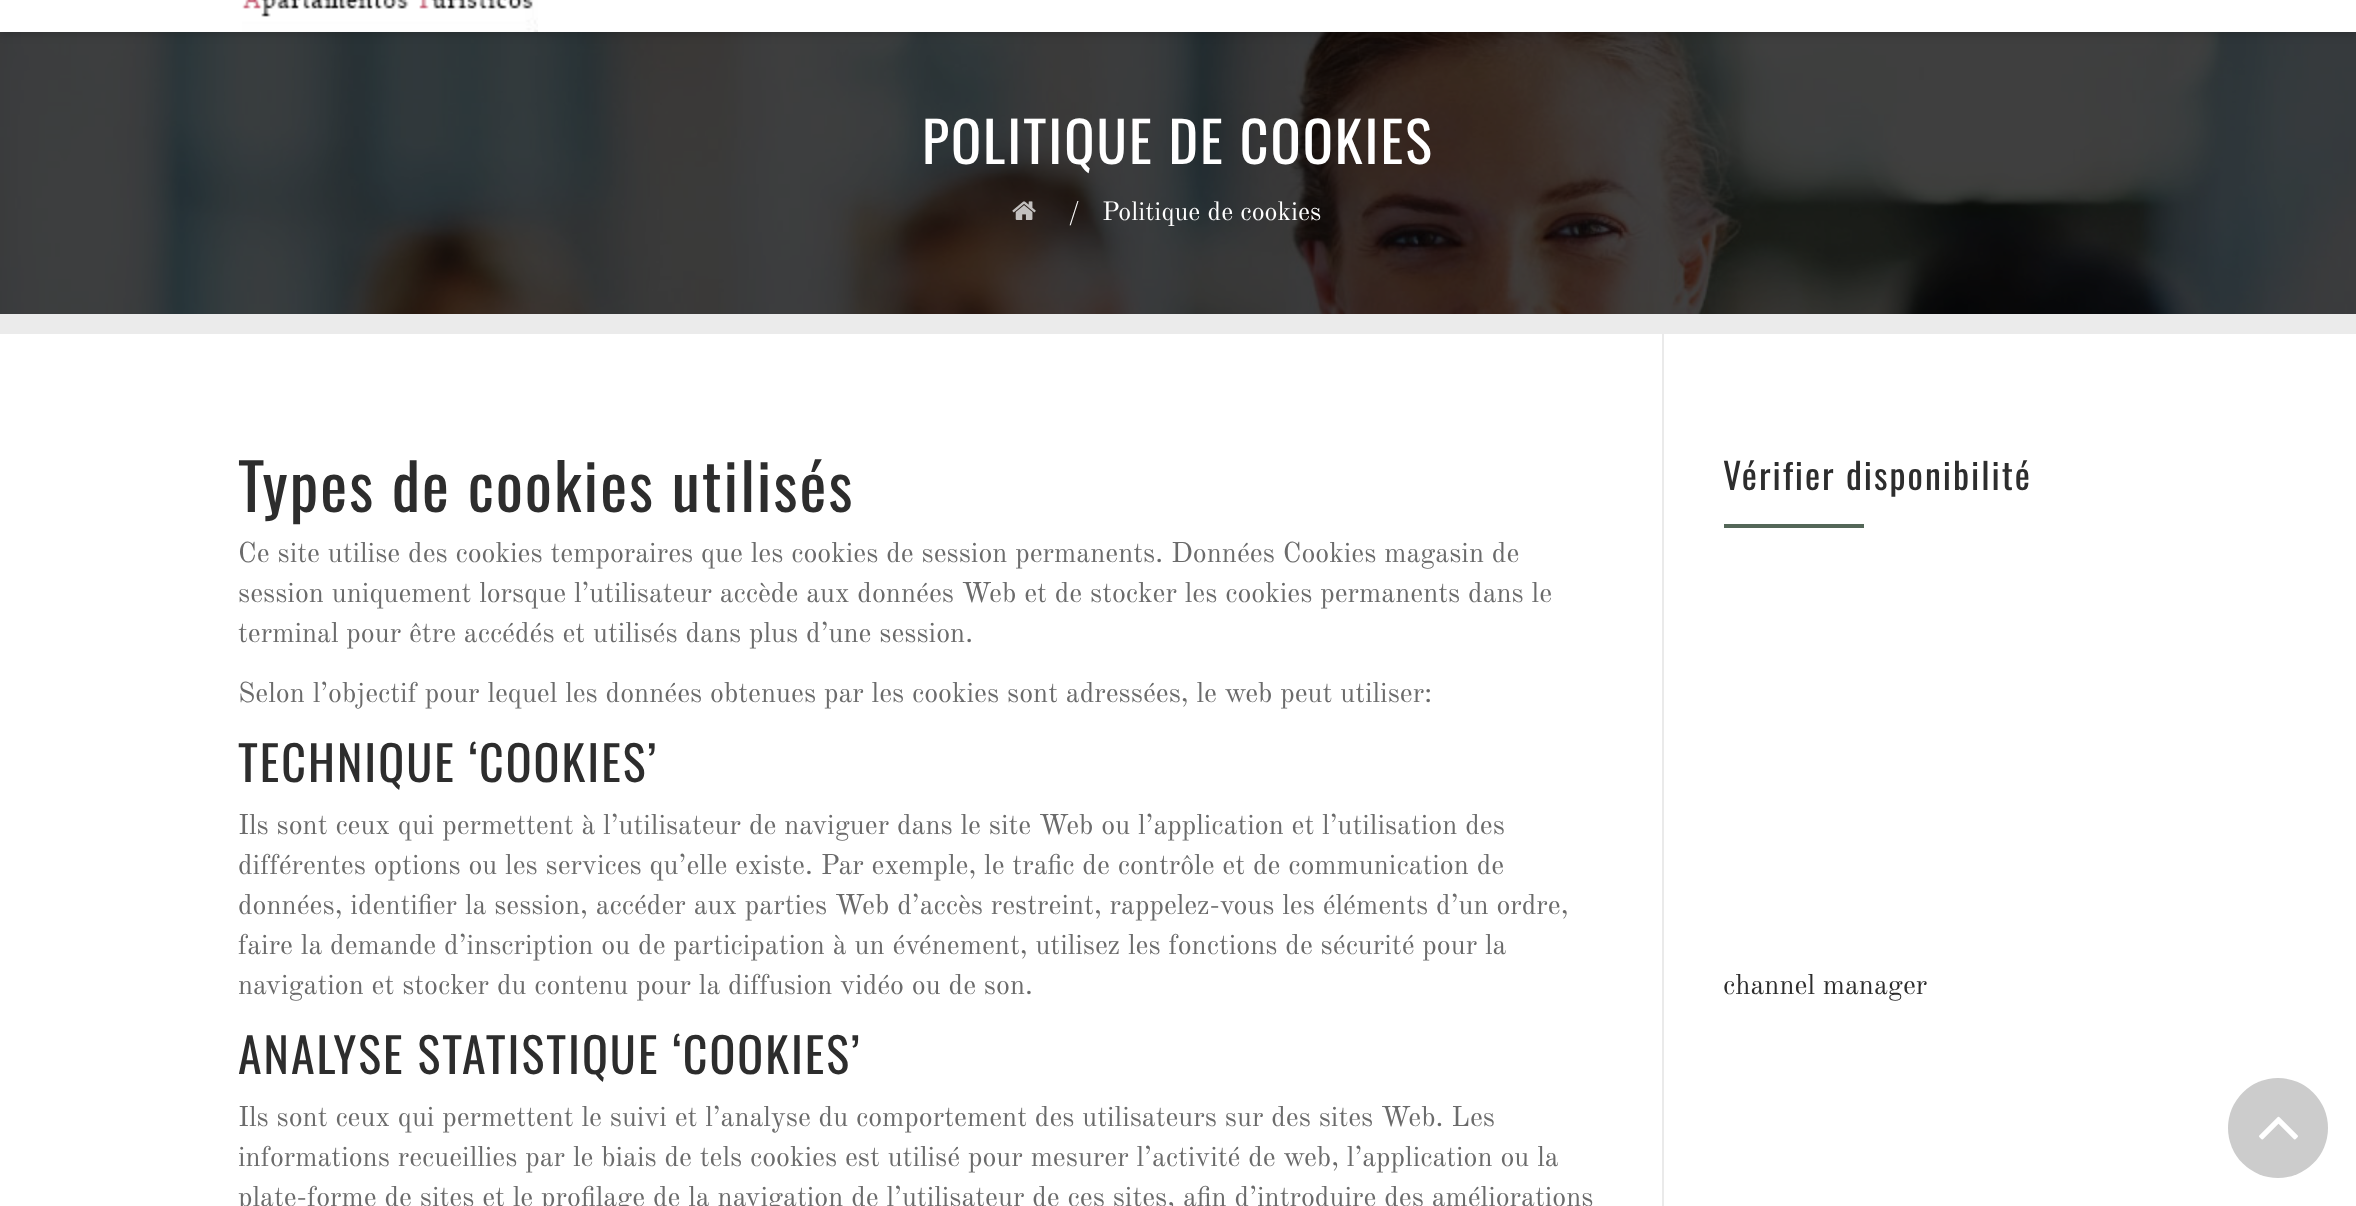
<svg xmlns="http://www.w3.org/2000/svg" width="2356" height="1206" viewBox="0 0 2356 1206">
  <style>
    .t1 { font: 56px Oswald; letter-spacing: 2px; fill: #fff; }
    .t2 { font: 26px Old Standard TT; fill: #fff; }
    .t3 { font: 64px Oswald; letter-spacing: 2px; fill: #2d2d2d; }
    .t4 { font: 28px Old Standard TT; fill: #6b6b6b; }
    .t5 { font: 48px Oswald; letter-spacing: 2px; fill: #2d2d2d; }
    .t6 { font: 36px Oswald; letter-spacing: 2px; fill: #2d2d2d; }
    .t7 { font: 28px Old Standard TT; fill: #2d2d2d; }
  </style>
  <rect width="100%" height="100%" fill="#fff"/>
  <rect x="0" y="314" width="2356" height="20" fill="#ebebeb"/>
  <image x="0" y="32" width="2356" height="282" href="images/2.png"/>
  <rect x="0" y="-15" width="2356" height="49" fill="#00000033" filter="blur(5px)"/>
  <rect x="0" y="0" width="2356" height="32" fill="#fff"/>
  <image x="242" y="0" width="296" height="32" href="images/1.png"/>
  <text x="922" y="164" class="t1">POLITIQUE DE COOKIES</text>
  <image x="1012" y="201" width="24" height="19" href="images/3.png"/>
  <text x="1073" y="220" class="t2">⁄</text>
  <text x="1102" y="220" class="t2">Politique de cookies</text>
  <rect x="1662" y="334" width="2" height="872" fill="#eaeaea"/>
  <text x="238" y="512" class="t3">Types de cookies utilisés</text>
  <text x="238" y="562" class="t4">Ce site utilise des cookies temporaires que les cookies de session permanents. Données Cookies magasin de</text>
  <text x="238" y="602" class="t4">session uniquement lorsque l’utilisateur accède aux données Web et de stocker les cookies permanents dans le</text>
  <text x="238" y="642" class="t4">terminal pour être accédés et utilisés dans plus d’une session.</text>
  <text x="238" y="702" class="t4">Selon l’objectif pour lequel les données obtenues par les cookies sont adressées, le web peut utiliser:</text>
  <text x="238" y="782" class="t5">TECHNIQUE ‘COOKIES’</text>
  <text x="238" y="834" class="t4">Ils sont ceux qui permettent à l’utilisateur de naviguer dans le site Web ou l’application et l’utilisation des</text>
  <text x="238" y="874" class="t4">différentes options ou les services qu’elle existe. Par exemple, le trafic de contrôle et de communication de</text>
  <text x="238" y="914" class="t4">données, identifier la session, accéder aux parties Web d’accès restreint, rappelez-vous les éléments d’un ordre,</text>
  <text x="238" y="954" class="t4">faire la demande d’inscription ou de participation à un événement, utilisez les fonctions de sécurité pour la</text>
  <text x="238" y="994" class="t4">navigation et stocker du contenu pour la diffusion vidéo ou de son.</text>
  <text x="238" y="1074" class="t5">ANALYSE STATISTIQUE ‘COOKIES’</text>
  <text x="238" y="1126" class="t4">Ils sont ceux qui permettent le suivi et l’analyse du comportement des utilisateurs sur des sites Web. Les</text>
  <text x="238" y="1166" class="t4">informations recueillies par le biais de tels cookies est utilisé pour mesurer l’activité de web, l’application ou la</text>
  <text x="238" y="1206" class="t4">plate-forme de sites et le profilage de la navigation de l’utilisateur de ces sites, afin d’introduire des améliorations</text>
  <text x="1723" y="490" class="t6">Vérifier disponibilité</text>
  <rect x="1724" y="524" width="140" height="4" fill="#546758"/>
  <text x="1723" y="994" class="t7">channel manager</text>
  <circle cx="2278" cy="1128" r="50" fill="#ccc"/>
  <image x="2259" y="1116" width="39" height="24" href="images/4.png"/>
</svg>
